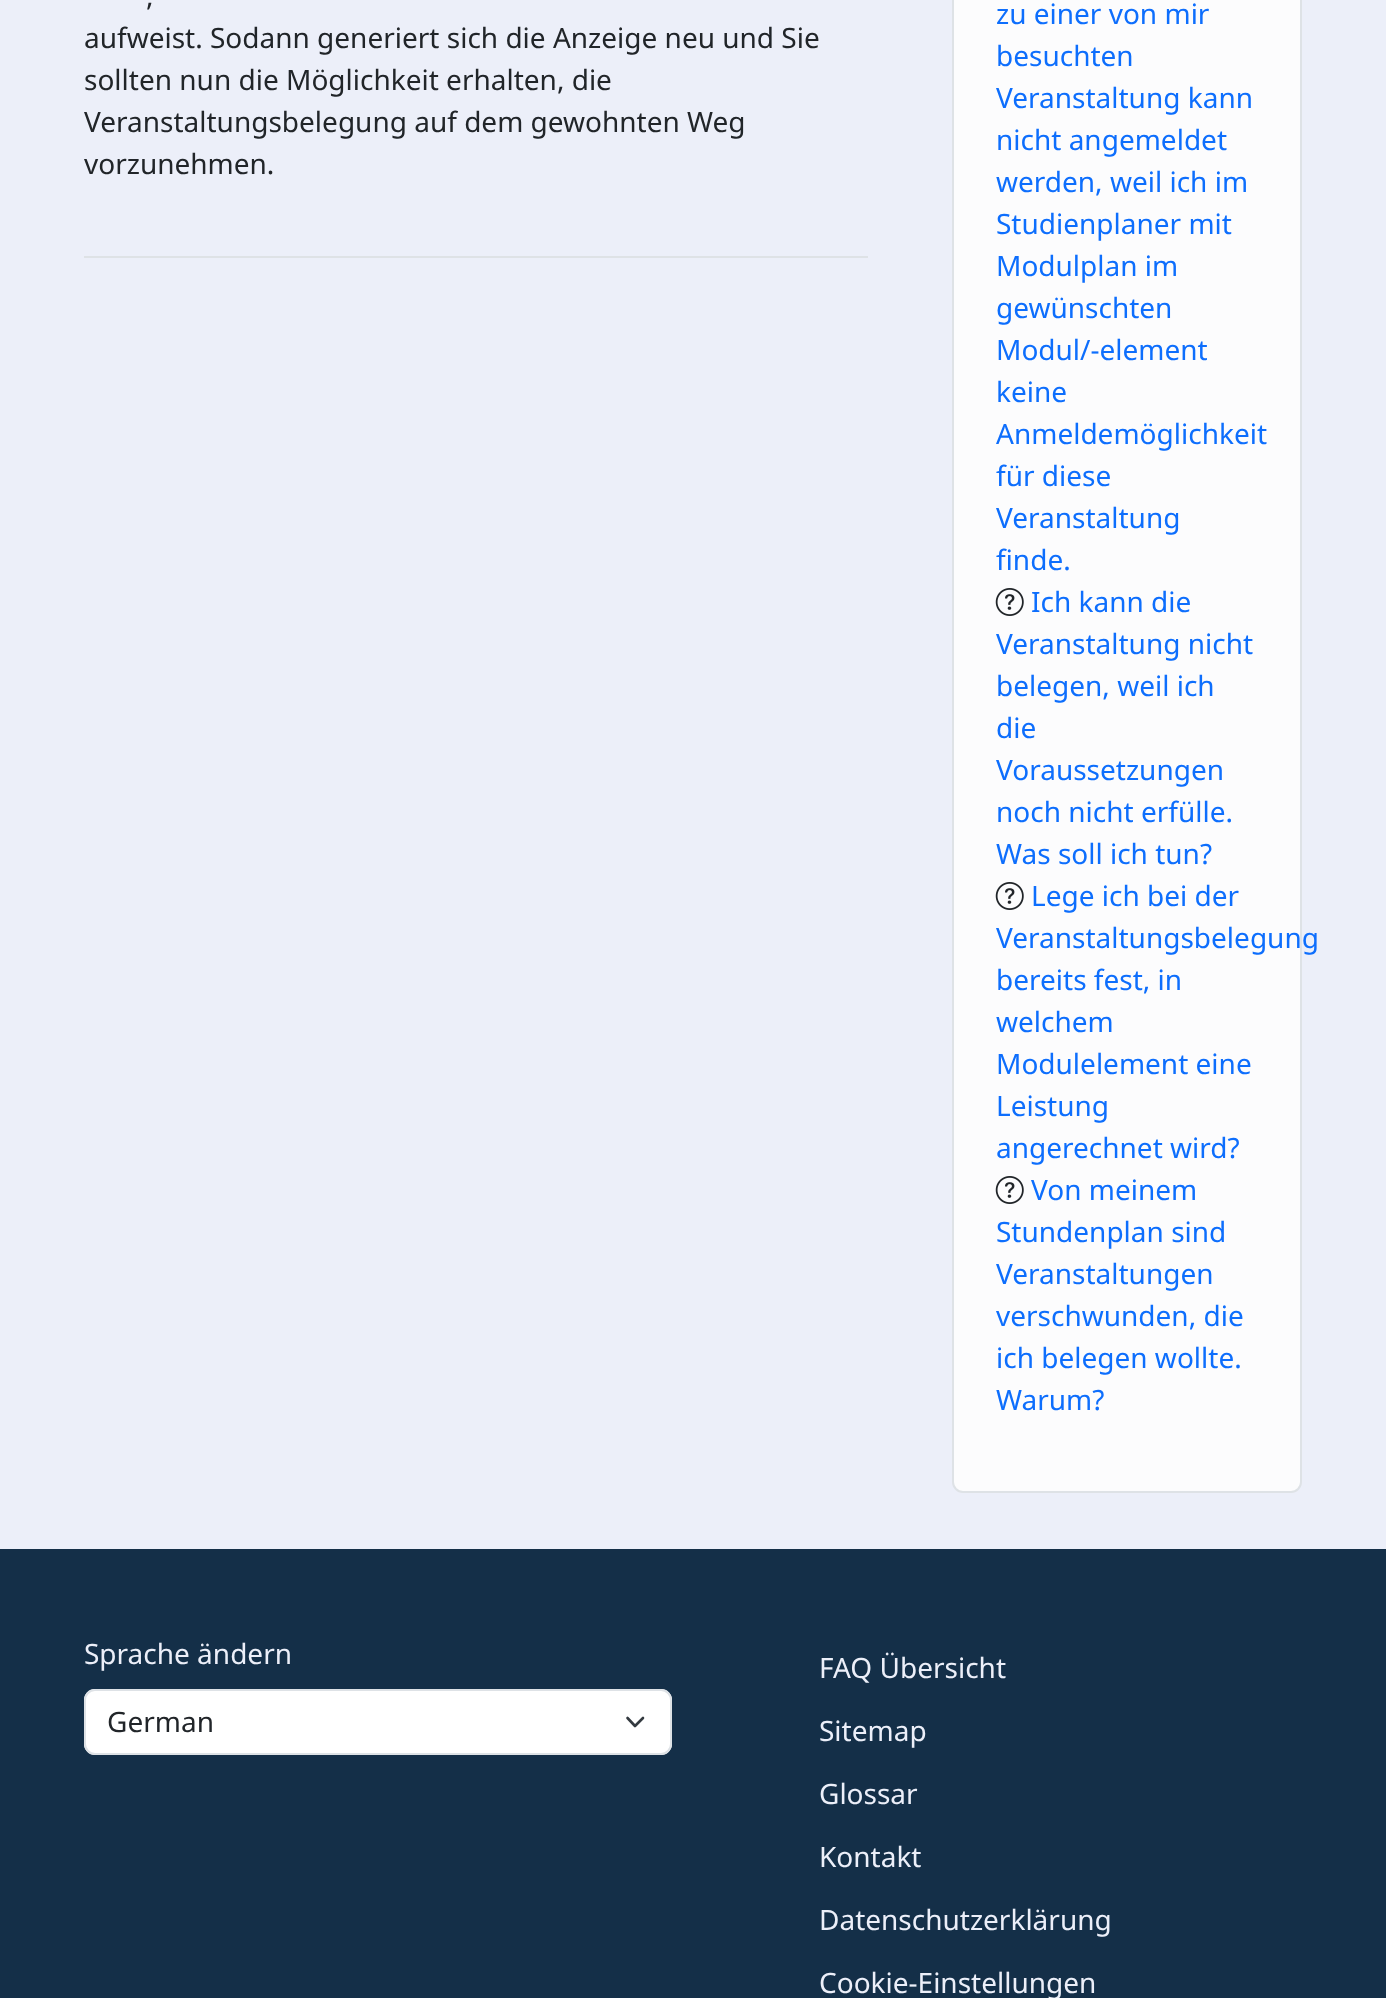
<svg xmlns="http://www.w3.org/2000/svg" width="1386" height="1998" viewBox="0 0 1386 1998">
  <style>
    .t1 { font: 28px Noto Sans; fill: #212529; }
    .t2 { font: 28px Noto Sans; fill: #0d6efd; }
    .t3 { font: 28px Noto Sans; fill: #eceff9; }
  </style>
  <rect width="100%" height="100%" fill="#eceff9"/>
  <rect x="84" y="256" width="784" height="2" fill="#dee2e6"/>
  <text x="146" y="6" class="t1">,</text>
  <text x="84" y="48" class="t1">aufweist. Sodann generiert sich die Anzeige neu und Sie</text>
  <text x="84" y="90" class="t1">sollten nun die Möglichkeit erhalten, die</text>
  <text x="84" y="132" class="t1">Veranstaltungsbelegung auf dem gewohnten Weg</text>
  <text x="84" y="174" class="t1">vorzunehmen.</text>
  <rect x="953" y="-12" width="348" height="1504" rx="10" fill="#fcfcfd" stroke="#dee2e6" stroke-width="2"/>
  <text x="996" y="24" class="t2">zu einer von mir</text>
  <text x="996" y="66" class="t2">besuchten</text>
  <text x="996" y="108" class="t2">Veranstaltung kann</text>
  <text x="996" y="150" class="t2">nicht angemeldet</text>
  <text x="996" y="192" class="t2">werden, weil ich im</text>
  <text x="996" y="234" class="t2">Studienplaner mit</text>
  <text x="996" y="276" class="t2">Modulplan im</text>
  <text x="996" y="318" class="t2">gewünschten</text>
  <text x="996" y="360" class="t2">Modul/-element</text>
  <text x="996" y="402" class="t2">keine</text>
  <text x="996" y="444" class="t2">Anmeldemöglichkeit</text>
  <text x="996" y="486" class="t2">für diese</text>
  <text x="996" y="528" class="t2">Veranstaltung</text>
  <text x="996" y="570" class="t2">finde.</text>
  <image x="995" y="588" width="29" height="28" href="images/1.png"/>
  <text x="1031" y="612" class="t2">Ich kann die</text>
  <text x="996" y="654" class="t2">Veranstaltung nicht</text>
  <text x="996" y="696" class="t2">belegen, weil ich</text>
  <text x="996" y="738" class="t2">die</text>
  <text x="996" y="780" class="t2">Voraussetzungen</text>
  <text x="996" y="822" class="t2">noch nicht erfülle.</text>
  <text x="996" y="864" class="t2">Was soll ich tun?</text>
  <image x="995" y="882" width="29" height="28" href="images/1.png"/>
  <text x="1031" y="906" class="t2">Lege ich bei der</text>
  <text x="996" y="948" class="t2">Veranstaltungsbelegung</text>
  <text x="996" y="990" class="t2">bereits fest, in</text>
  <text x="996" y="1032" class="t2">welchem</text>
  <text x="996" y="1074" class="t2">Modulelement eine</text>
  <text x="996" y="1116" class="t2">Leistung</text>
  <text x="996" y="1158" class="t2">angerechnet wird?</text>
  <image x="995" y="1176" width="29" height="28" href="images/1.png"/>
  <text x="1031" y="1200" class="t2">Von meinem</text>
  <text x="996" y="1242" class="t2">Stundenplan sind</text>
  <text x="996" y="1284" class="t2">Veranstaltungen</text>
  <text x="996" y="1326" class="t2">verschwunden, die</text>
  <text x="996" y="1368" class="t2">ich belegen wollte.</text>
  <text x="996" y="1410" class="t2">Warum?</text>
  <rect x="0" y="1549" width="1386" height="449" fill="#142f48"/>
  <text x="84" y="1664" class="t3">Sprache ändern</text>
  <rect x="84" y="1689" width="588" height="66" rx="11" fill="#fff"/>
  <path d="M627.5 1718L635 1726L643 1718" fill="none" stroke="#343a40" stroke-width="2.6" stroke-linecap="round" stroke-linejoin="round"/>
  <rect x="85" y="1690" width="586" height="64" rx="10" fill="none" stroke="#dee2e6" stroke-width="2"/>
  <text x="107" y="1732" class="t1">German</text>
  <text x="819" y="1678" class="t3">FAQ Übersicht</text>
  <text x="819" y="1741" class="t3">Sitemap</text>
  <text x="819" y="1804" class="t3">Glossar</text>
  <text x="819" y="1867" class="t3">Kontakt</text>
  <text x="819" y="1930" class="t3">Datenschutzerklärung</text>
  <text x="819" y="1993" class="t3">Cookie-Einstellungen</text>
</svg>
